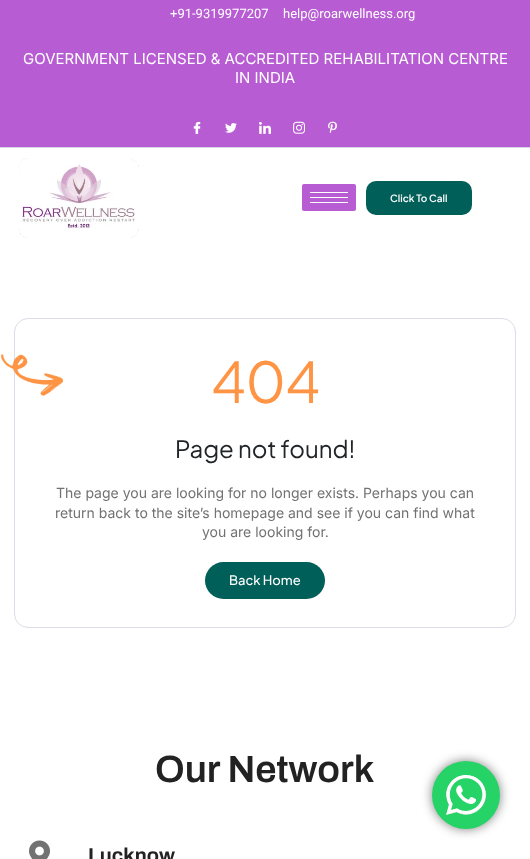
<svg xmlns="http://www.w3.org/2000/svg" width="530" height="859" viewBox="0 0 530 859">
  <style>
    .t1 { font: 13px Roboto; fill: #fff; }
    .t2 { font: 15px Inter; fill: #fff; }
    .t3 { font: 600 10px Plus Jakarta Sans; fill: #fff; }
    .t4 { font: 56px Plus Jakarta Sans; letter-spacing: -1px; fill: #ff9444; }
    .t5 { font: 24px Plus Jakarta Sans; fill: #212528; }
    .t6 { font: 14px Inter; fill: #727272; }
    .t7 { font: 500 13px Plus Jakarta Sans; fill: #fff; }
    .t8 { font: 600 38px Archivo; fill: #222; }
    .t9 { font: bold 20px Archivo; fill: #222; }
  </style>
  <rect width="100%" height="100%" fill="#fff"/>
  <rect x="0" y="0" width="530" height="147" fill="#b75cd2"/>
  <rect x="0" y="147" width="530" height="1" fill="#d4d6e3"/>
  <text x="170" y="18" class="t1">+91-9319977207</text>
  <text x="283" y="18" class="t1">help@roarwellness.org</text>
  <text x="23" y="64" class="t2">GOVERNMENT LICENSED &amp; ACCREDITED REHABILITATION CENTRE</text>
  <text x="235" y="83" class="t2">IN INDIA</text>
  <image x="193" y="121" width="8" height="13" href="images/1.png"/>
  <image x="225" y="123" width="12" height="10" href="images/2.png"/>
  <image x="259" y="121" width="12" height="13" href="images/3.png"/>
  <image x="293" y="121" width="12" height="13" href="images/4.png"/>
  <image x="328" y="121" width="9" height="13" href="images/5.png"/>
  <image x="18" y="158" width="121" height="80" href="images/6.png"/>
  <rect x="302" y="184" width="54" height="27" rx="2" fill="#b75cd2"/>
  <rect x="310" y="192" width="38" height="1" fill="#fff"/>
  <rect x="310" y="197" width="38" height="1" fill="#fff"/>
  <rect x="310" y="202" width="38" height="1" fill="#fff"/>
  <rect x="366" y="181" width="106" height="34" rx="10" fill="#005f59"/>
  <text x="390" y="202" class="t3">Click To Call</text>
  <rect x="14.5" y="318.5" width="501" height="309" rx="13.5" fill="none" stroke="#dcdde8"/>
  <image x="1" y="354" width="62" height="42" href="images/7.png"/>
  <text x="211" y="403" class="t4">404</text>
  <text x="175" y="458" class="t5">Page not found!</text>
  <text x="56" y="498" class="t6">The page you are looking for no longer exists. Perhaps you can</text>
  <text x="55" y="518" class="t6">return back to the site’s homepage and see if you can find what</text>
  <text x="202" y="537" class="t6">you are looking for.</text>
  <rect x="205" y="562" width="120" height="37" rx="18.5" fill="#005f59"/>
  <text x="229" y="585" class="t7">Back Home</text>
  <text x="155" y="782" class="t8">Our Network</text>
  <image x="29" y="840" width="21" height="19" href="images/8.png"/>
  <text x="88" y="862" class="t9">Lucknow</text>
  <rect x="432" y="761" width="68" height="68" rx="34" fill="#00000080" filter="blur(5.5px)"/>
  <circle cx="466" cy="795" r="34" fill="#25d366"/>
  <image x="446" y="775" width="40" height="40" href="images/9.png"/>
</svg>
